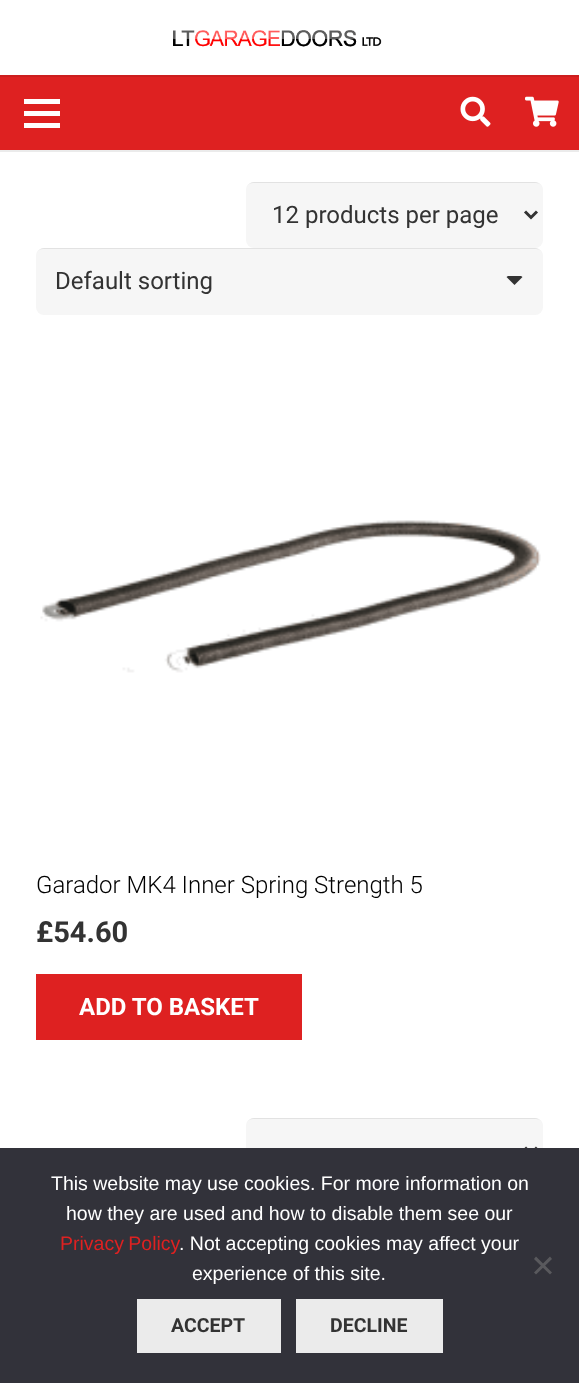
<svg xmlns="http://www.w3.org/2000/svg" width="579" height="1383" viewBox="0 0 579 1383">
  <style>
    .t1 { font: 24px Roboto; fill: #333; }
    .t2 { font: 300 24px Roboto; fill: #000; }
    .t3 { font: bold 29px Roboto; fill: #333; }
    .t4 { font: bold 24px Roboto; fill: #fff; }
    .t5 { font: 19.5px Liberation Sans; fill: #fff; }
    .t6 { font: 19.5px Liberation Sans; fill: #de2121; }
    .t7 { font: bold 19.5px Roboto; fill: #333; }
  </style>
  <rect width="100%" height="100%" fill="#fff"/>
  <rect x="0" y="75" width="579" height="2" fill="#cc1e1e"/>
  <image x="173" y="30" width="209" height="17" href="images/1.png"/>
  <rect x="0" y="150" width="579" height="2" fill="#ebebeb"/>
  <rect x="0" y="77" width="579" height="73" fill="#de2121"/>
  <rect x="24" y="111" width="36" height="5" fill="#fff"/>
  <rect x="24" y="99" width="36" height="5" fill="#fff"/>
  <rect x="24" y="123" width="36" height="5" fill="#fff"/>
  <image x="460" y="96" width="31" height="31" href="images/2.png"/>
  <image x="525" y="96" width="34" height="31" href="images/3.png"/>
  <rect x="246" y="182" width="297" height="66" rx="8" fill="#f6f6f6"/>
  <path d="M253 183H536C540 183 543 186 543 190C543 186 539 182 535 182H254C250 182 246 186 246 190C246 186 249 183 253 183Z" fill="#e2e2e2"/>
  <path d="M525 211.5L531 217.5L537 211.5" fill="none" stroke="#333" stroke-width="3"/>
  <text x="272" y="223" class="t1">12 products per page</text>
  <rect x="36" y="248" width="507" height="67" rx="8" fill="#f6f6f6"/>
  <path d="M43 249H536C540 249 543 252 543 256C543 252 539 248 535 248H44C40 248 36 252 36 256C36 252 39 249 43 249Z" fill="#e2e2e2"/>
  <text x="55" y="289" class="t1">Default sorting</text>
  <path d="M508.5 276C508 276 507 276.5 506.5 277L514.5 285L522.5 277C522 276.5 521 276 520.5 276Z" fill="#333"/>
  <image x="40" y="520" width="501" height="153" href="images/4.png"/>
  <text x="36" y="893" class="t2">Garador MK4 Inner Spring Strength 5</text>
  <text x="36" y="942" class="t3">£54.60</text>
  <rect x="36" y="974" width="266" height="66" fill="#de2121"/>
  <text x="79" y="1015" class="t4">ADD TO BASKET</text>
  <rect x="246" y="1118" width="297" height="66" rx="8" fill="#f6f6f6"/>
  <path d="M253 1119H536C540 1119 543 1122 543 1126C543 1122 539 1118 535 1118H254C250 1118 246 1122 246 1126C246 1122 249 1119 253 1119Z" fill="#e2e2e2"/>
  <path d="M525 1147.5L531 1153.5L537 1147.5" fill="none" stroke="#333" stroke-width="3"/>
  <rect x="0" y="1148" width="579" height="235" fill="#32323a"/>
  <text x="51" y="1190" class="t5">This website may use cookies. For more information on</text>
  <text x="66" y="1220" class="t5">how they are used and how to disable them see our</text>
  <text x="60" y="1250" word-spacing="-1" class="t6">Privacy Policy</text>
  <text x="179" y="1250" class="t5">. Not accepting cookies may affect your</text>
  <text x="192" y="1280" class="t5">experience of this site.</text>
  <path d="M550 1256.5L552 1259L536 1274.5L534 1272.5Z" fill="#59595d"/>
  <path d="M534 1259L536 1256.5L552 1272.5L550 1274.5Z" fill="#59595d"/>
  <rect x="137" y="1299" width="144" height="54" fill="#ebebeb"/>
  <text x="171" y="1332" class="t7">ACCEPT</text>
  <rect x="296" y="1299" width="147" height="54" fill="#ebebeb"/>
  <text x="330" y="1332" class="t7">DECLINE</text>
</svg>
